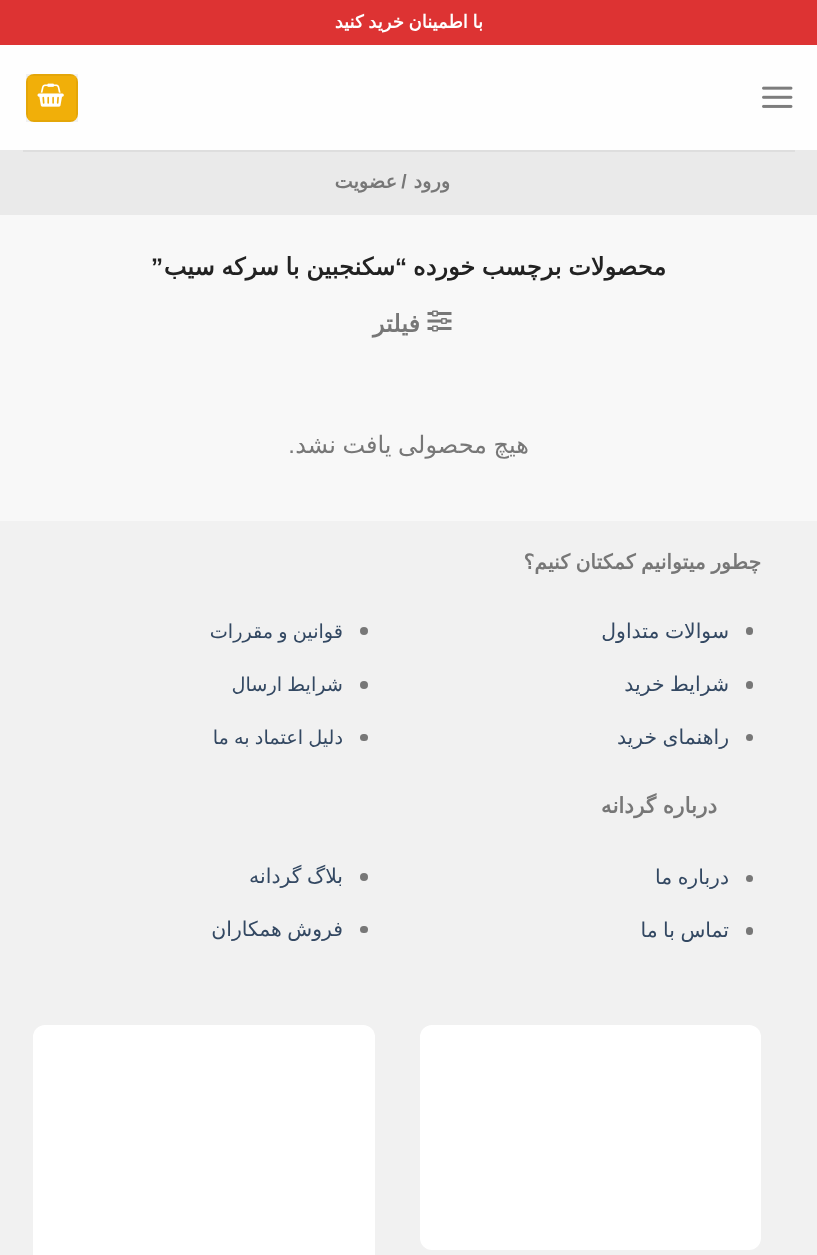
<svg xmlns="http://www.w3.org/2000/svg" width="817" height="1255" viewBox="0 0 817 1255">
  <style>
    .t1 { font: bold 18px DejaVu Sans; direction: rtl; fill: #fff; }
    .t2 { font: bold 19.25px DejaVu Sans; letter-spacing: 0.5px; direction: rtl; fill: #777; }
    .t3 { font: bold 19.25px Liberation Sans; letter-spacing: 0.5px; direction: rtl; fill: #777; }
    .t4 { font: bold 24px DejaVu Sans; direction: rtl; fill: #222; }
    .t5 { font: bold 24px Liberation Sans; direction: rtl; fill: #222; }
    .t6 { font: bold 24px DejaVu Sans; direction: rtl; fill: #777; }
    .t7 { font: 24px DejaVu Sans; direction: rtl; fill: #777; }
    .t8 { font: 24px Liberation Sans; direction: rtl; fill: #777; }
    .t9 { font: bold 20.4px DejaVu Sans; direction: rtl; fill: #777; }
    .t10 { font: 20.4px DejaVu Sans; direction: rtl; fill: #334862; }
    .t11 { font: 19.25px DejaVu Sans; direction: rtl; fill: #334862; }
    .t12 { font: bold 21.5px DejaVu Sans; direction: rtl; fill: #777; }
  </style>
  <rect width="100%" height="100%" fill="#f8f8f8"/>
  <rect x="0" y="0" width="817" height="45" fill="#d33"/>
  <text x="483" y="28" word-spacing="-1" class="t1">با اطمینان خرید کنید</text>
  <rect x="0" y="45" width="817" height="105" fill="#fefefe"/>
  <image x="762" y="86" width="31" height="22" href="images/1.png"/>
  <rect x="26" y="74" width="52" height="48" rx="8" fill="#f1af09"/>
  <rect x="27" y="75" width="50" height="46" fill="none" stroke="#0000000d" stroke-width="2"/>
  <image x="37" y="83" width="27" height="24" href="images/2.png"/>
  <rect x="0" y="150" width="817" height="65" fill="#eaeaea"/>
  <rect x="23" y="150" width="772" height="2" fill="#dedede"/>
  <text x="450" y="188" class="t2">ورود</text>
  <text x="407" y="188" class="t3">/</text>
  <text x="397" y="188" class="t2">عضویت</text>
  <text x="666" y="275" word-spacing="-1" class="t4">محصولات برچسب خورده</text>
  <text x="407" y="275" class="t5">“</text>
  <text x="395" y="275" word-spacing="-1" class="t4">سکنجبین با سرکه سیب</text>
  <text x="163" y="275" class="t5">”</text>
  <image x="427" y="310" width="25" height="22" href="images/3.png"/>
  <text x="420" y="332" class="t6">فیلتر</text>
  <text x="529" y="453" word-spacing="-1" class="t7">هیچ محصولی یافت نشد</text>
  <text x="295" y="453" class="t8">.</text>
  <rect x="0" y="521" width="817" height="734" fill="#f1f1f1"/>
  <text x="761" y="569" word-spacing="-1" class="t9">چطور میتوانیم کمکتان کنیم؟</text>
  <rect x="746" y="627" width="7" height="8" rx="3.5" fill="#777"/>
  <text x="729" y="638" word-spacing="-1" class="t10">سوالات متداول</text>
  <rect x="746" y="681" width="7" height="8" rx="3.5" fill="#777"/>
  <text x="729" y="691" word-spacing="-1" class="t10">شرایط خرید</text>
  <circle cx="749.5" cy="737.5" r="3.5" fill="#777"/>
  <text x="729" y="744" word-spacing="-1" class="t10">راهنمای خرید</text>
  <circle cx="364" cy="631" r="4" fill="#777"/>
  <text x="343" y="638" word-spacing="-1" class="t11">قوانین و مقررات</text>
  <circle cx="364" cy="685" r="4" fill="#777"/>
  <text x="343" y="691" word-spacing="-1" class="t11">شرایط ارسال</text>
  <rect x="360" y="734" width="8" height="7" rx="3.5" fill="#777"/>
  <text x="343" y="744" word-spacing="-1" class="t11">دلیل اعتماد به ما</text>
  <text x="717" y="813" class="t12">درباره گردانه</text>
  <circle cx="749.5" cy="878.5" r="3.5" fill="#777"/>
  <text x="729" y="884" word-spacing="-1" class="t10">درباره ما</text>
  <rect x="746" y="927" width="7" height="8" rx="3.5" fill="#777"/>
  <text x="729" y="937" word-spacing="-1" class="t10">تماس با ما</text>
  <circle cx="364" cy="877" r="4" fill="#777"/>
  <text x="343" y="883" word-spacing="-1" class="t10">بلاگ گردانه</text>
  <rect x="360" y="926" width="8" height="7" rx="3.5" fill="#777"/>
  <text x="343" y="936" word-spacing="-1" class="t10">فروش همکاران</text>
  <rect x="420" y="1025" width="341" height="225" rx="12" fill="#fff"/>
  <rect x="33" y="1025" width="342" height="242" rx="12" fill="#fff"/>
</svg>
